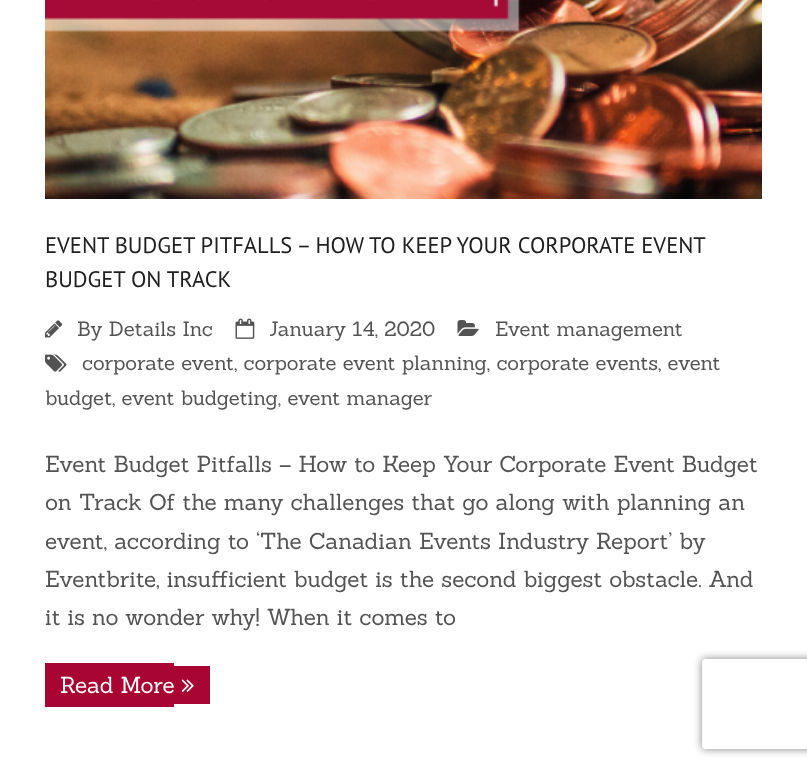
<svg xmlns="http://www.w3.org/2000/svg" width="807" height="769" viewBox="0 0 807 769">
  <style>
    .t1 { font: 22.5px PT Sans; fill: #202020; }
    .t2 { font: 20.25px Sanchez; fill: #535353; }
    .t3 { font: 22.5px Sanchez; fill: #535353; }
    .t4 { font: 22.5px Sanchez; fill: #fff; }
  </style>
  <defs>
    <clipPath id="clip1"><path d="M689 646H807V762H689ZM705 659H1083C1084.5 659 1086 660.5 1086 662V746C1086 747.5 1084.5 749 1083 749H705C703.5 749 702 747.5 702 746V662C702 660.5 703.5 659 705 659Z" clip-rule="evenodd"/></clipPath>
  </defs>
  <rect width="100%" height="100%" fill="#fff"/>
  <image x="45" y="0" width="717" height="199" href="images/1.png"/>
  <text x="45" y="253" class="t1">EVENT BUDGET PITFALLS – HOW TO KEEP YOUR CORPORATE EVENT</text>
  <text x="45" y="287" class="t1">BUDGET ON TRACK</text>
  <image x="45" y="320" width="18" height="18" href="images/2.png"/>
  <text x="77" y="336" class="t2">By Details Inc</text>
  <image x="235" y="318" width="20" height="21" href="images/3.png"/>
  <text x="269" y="336" class="t2">January 14, 2020</text>
  <image x="457" y="320" width="22" height="16" href="images/4.png"/>
  <text x="495" y="336" class="t2">Event management</text>
  <image x="45" y="354" width="22" height="18" href="images/5.png"/>
  <text x="82" y="370" class="t2">corporate event, corporate event planning, corporate events, event</text>
  <text x="45" y="405" class="t2">budget, event budgeting, event manager</text>
  <text x="45" y="472" class="t3">Event Budget Pitfalls – How to Keep Your Corporate Event Budget</text>
  <text x="45" y="510" class="t3">on Track Of the many challenges that go along with planning an</text>
  <text x="45" y="549" class="t3">event, according to ‘The Canadian Events Industry Report’ by</text>
  <text x="45" y="587" class="t3">Eventbrite, insufficient budget is the second biggest obstacle. And</text>
  <text x="45" y="625" class="t3">it is no wonder why! When it comes to</text>
  <rect x="45" y="663" width="129" height="44" fill="#a80532"/>
  <text x="60" y="693" class="t4">Read More</text>
  <rect x="174" y="666" width="36" height="38" fill="#a80532"/>
  <image x="181" y="679" width="13" height="13" href="images/6.png"/>
  <g clip-path="url(#clip1)">
    <rect x="702" y="659" width="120" height="90" rx="3" fill="#808080" filter="blur(4px)"/>
  </g>
</svg>
